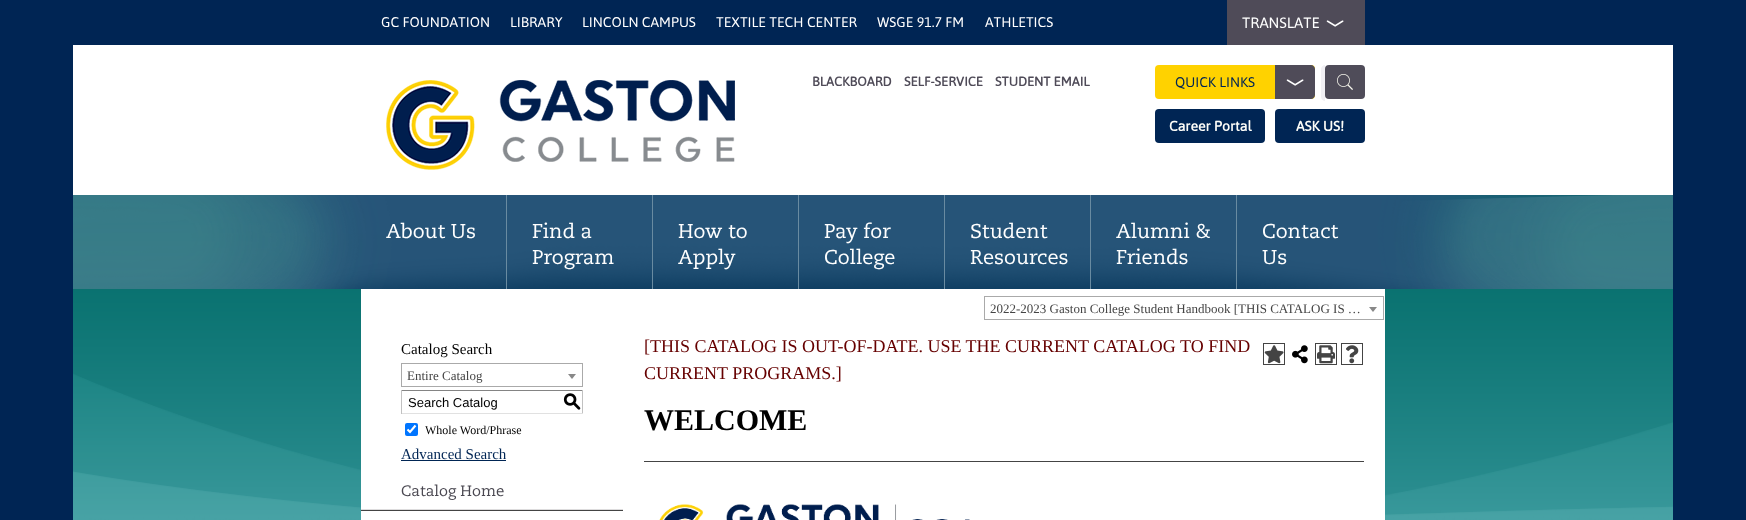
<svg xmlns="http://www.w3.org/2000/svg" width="1746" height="520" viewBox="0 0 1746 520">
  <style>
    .t1 { font: 14px Asap; fill: #fff; }
    .t2 { font: 15px Asap; fill: #fff; }
    .t3 { font: bold 13px Asap; fill: #4f4b58; }
    .t4 { font: 14px Asap; fill: #002554; }
    .t5 { font: bold 14px Asap; fill: #fdfdf8; }
    .t6 { font: 20px 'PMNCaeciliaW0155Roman'; fill: #fff; }
    .t7 { font: 13px Liberation Serif; fill: #444; }
    .t8 { font: 15px Liberation Serif; fill: #000; }
    .t9 { font: 13px Liberation Sans; fill: #000; }
    .t10 { font: 500 18px 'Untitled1'; fill: #000; }
    .t11 { font: 12px Liberation Serif; fill: #000; }
    .t12 { font: 15px Liberation Serif; fill: #002554; }
    .t13 { font: 15px 'PMNCaeciliaW0155Roman'; fill: #4a4851; }
    .t14 { font: 18px Liberation Serif; fill: #600; }
    .t15 { font: bold 30px Liberation Serif; fill: #000; }
  </style>
  <rect width="100%" height="100%" fill="#002554"/>
  <text x="381" y="27" class="t1">GC FOUNDATION</text>
  <text x="510" y="27" class="t1">LIBRARY</text>
  <text x="582" y="27" class="t1">LINCOLN CAMPUS</text>
  <text x="716" y="27" class="t1">TEXTILE TECH CENTER</text>
  <text x="877" y="27" class="t1">WSGE 91.7 FM</text>
  <text x="985" y="27" class="t1">ATHLETICS</text>
  <rect x="1227" y="0" width="138" height="45" fill="#4f4b58"/>
  <text x="1242" y="28" class="t2">TRANSLATE</text>
  <image x="1326" y="20" width="18" height="7" href="images/1.png"/>
  <rect x="73" y="45" width="1600" height="150" fill="#fff"/>
  <image x="386" y="80" width="349" height="90" href="images/2.png"/>
  <text x="812" y="86" class="t3">BLACKBOARD</text>
  <text x="904" y="86" class="t3">SELF-SERVICE</text>
  <text x="995" y="86" class="t3">STUDENT EMAIL</text>
  <rect x="1155" y="65" width="160" height="34" rx="4" fill="#ffd200"/>
  <text x="1175" y="87" class="t4">QUICK LINKS</text>
  <path d="M1275 65H1311C1313 65 1315 67 1315 69V95C1315 97 1313 99 1311 99H1275Z" fill="#4f4b58"/>
  <image x="1286" y="79" width="18" height="7" href="images/1.png"/>
  <path d="M1325 65V101C1323 101 1321 99 1321 97V69C1321 67 1323 65 1325 65Z" fill="#f1f0f4"/>
  <rect x="1325" y="65" width="40" height="34" rx="4" fill="#4f4c59"/>
  <image x="1337" y="74" width="16" height="16" href="images/3.png"/>
  <rect x="1155" y="109" width="110" height="34" rx="4" fill="#002554"/>
  <text x="1169" y="131" class="t5">Career Portal</text>
  <rect x="1275" y="109" width="90" height="34" rx="4" fill="#002554"/>
  <text x="1296" y="131" class="t5">ASK US!</text>
  <image x="73" y="195" width="1600" height="94" href="images/4.png"/>
  <image x="73" y="195" width="1600" height="94" href="images/5.png"/>
  <rect x="506" y="195" width="1" height="94" fill="#698ba1"/>
  <text x="386" y="238" class="t6">About Us</text>
  <rect x="652" y="195" width="1" height="94" fill="#698ba1"/>
  <text x="532" y="238" class="t6">Find a</text>
  <text x="532" y="264" class="t6">Program</text>
  <rect x="798" y="195" width="1" height="94" fill="#698ba1"/>
  <text x="678" y="238" class="t6">How to</text>
  <text x="678" y="264" class="t6">Apply</text>
  <rect x="944" y="195" width="1" height="94" fill="#698ba1"/>
  <text x="824" y="238" class="t6">Pay for</text>
  <text x="824" y="264" class="t6">College</text>
  <rect x="1090" y="195" width="1" height="94" fill="#698ba1"/>
  <text x="970" y="238" class="t6">Student</text>
  <text x="970" y="264" class="t6">Resources</text>
  <rect x="1236" y="195" width="1" height="94" fill="#698ba1"/>
  <text x="1116" y="238" class="t6">Alumni &amp;</text>
  <text x="1116" y="264" class="t6">Friends</text>
  <text x="1262" y="238" class="t6">Contact</text>
  <text x="1262" y="264" class="t6">Us</text>
  <image x="73" y="289" width="1600" height="231" href="images/6.png"/>
  <rect x="361" y="289" width="1024" height="231" fill="#fff"/>
  <rect x="984.5" y="296.5" width="399" height="23" fill="none" stroke="#aaa"/>
  <text x="990" y="313" class="t7">2022-2023 Gaston College Student Handbook [THIS CATALOG IS …</text>
  <path d="M1369 307H1377L1373 312Z" fill="#888"/>
  <text x="401" y="354" class="t8">Catalog Search</text>
  <rect x="401.5" y="363.5" width="181" height="23" fill="none" stroke="#aaa"/>
  <text x="407" y="380" class="t7">Entire Catalog</text>
  <path d="M568 374H576L572 379Z" fill="#888"/>
  <rect x="401" y="390" width="182" height="1" fill="#848484"/>
  <rect x="582" y="390" width="1" height="24" fill="#c1c1c1"/>
  <rect x="401" y="413" width="182" height="1" fill="#e1e1e1"/>
  <rect x="401" y="390" width="1" height="24" fill="#c1c1c1"/>
  <text x="408" y="407" class="t9">Search Catalog</text>
  <text x="563" y="407" class="t10">S</text>
  <rect x="405" y="423" width="13" height="13" rx="2" fill="#0075ff"/>
  <path d="M407.5 429.5L410 432L415.5 425.5" fill="none" stroke="#fff" stroke-width="2.1"/>
  <text x="425" y="434" class="t11">Whole Word/Phrase</text>
  <text x="401" y="459" class="t12">Advanced Search</text>
  <rect x="401" y="460" width="105" height="1" fill="#002554"/>
  <rect x="361" y="509" width="262" height="1" fill="#dddcdd"/>
  <text x="401" y="496" class="t13">Catalog Home</text>
  <rect x="361" y="510" width="262" height="1" fill="#444"/>
  <text x="644" y="352" class="t14">[THIS CATALOG IS OUT-OF-DATE. USE THE CURRENT CATALOG TO FIND</text>
  <rect x="1263.5" y="343.5" width="21" height="21" fill="none" stroke="#444"/>
  <image x="1264" y="345" width="20" height="19" href="images/7.png"/>
  <image x="1292" y="345" width="16" height="19" href="images/8.png"/>
  <rect x="1315.5" y="343.5" width="21" height="21" fill="none" stroke="#444"/>
  <image x="1317" y="345" width="18" height="19" href="images/9.png"/>
  <rect x="1341.5" y="343.5" width="21" height="21" fill="none" stroke="#444"/>
  <image x="1346" y="345" width="13" height="19" href="images/10.png"/>
  <text x="644" y="379" class="t14">CURRENT PROGRAMS.]</text>
  <text x="644" y="430" class="t15">WELCOME</text>
  <rect x="644" y="461" width="720" height="1" fill="#444"/>
  <image x="659" y="504" width="311" height="16" href="images/11.png"/>
</svg>
